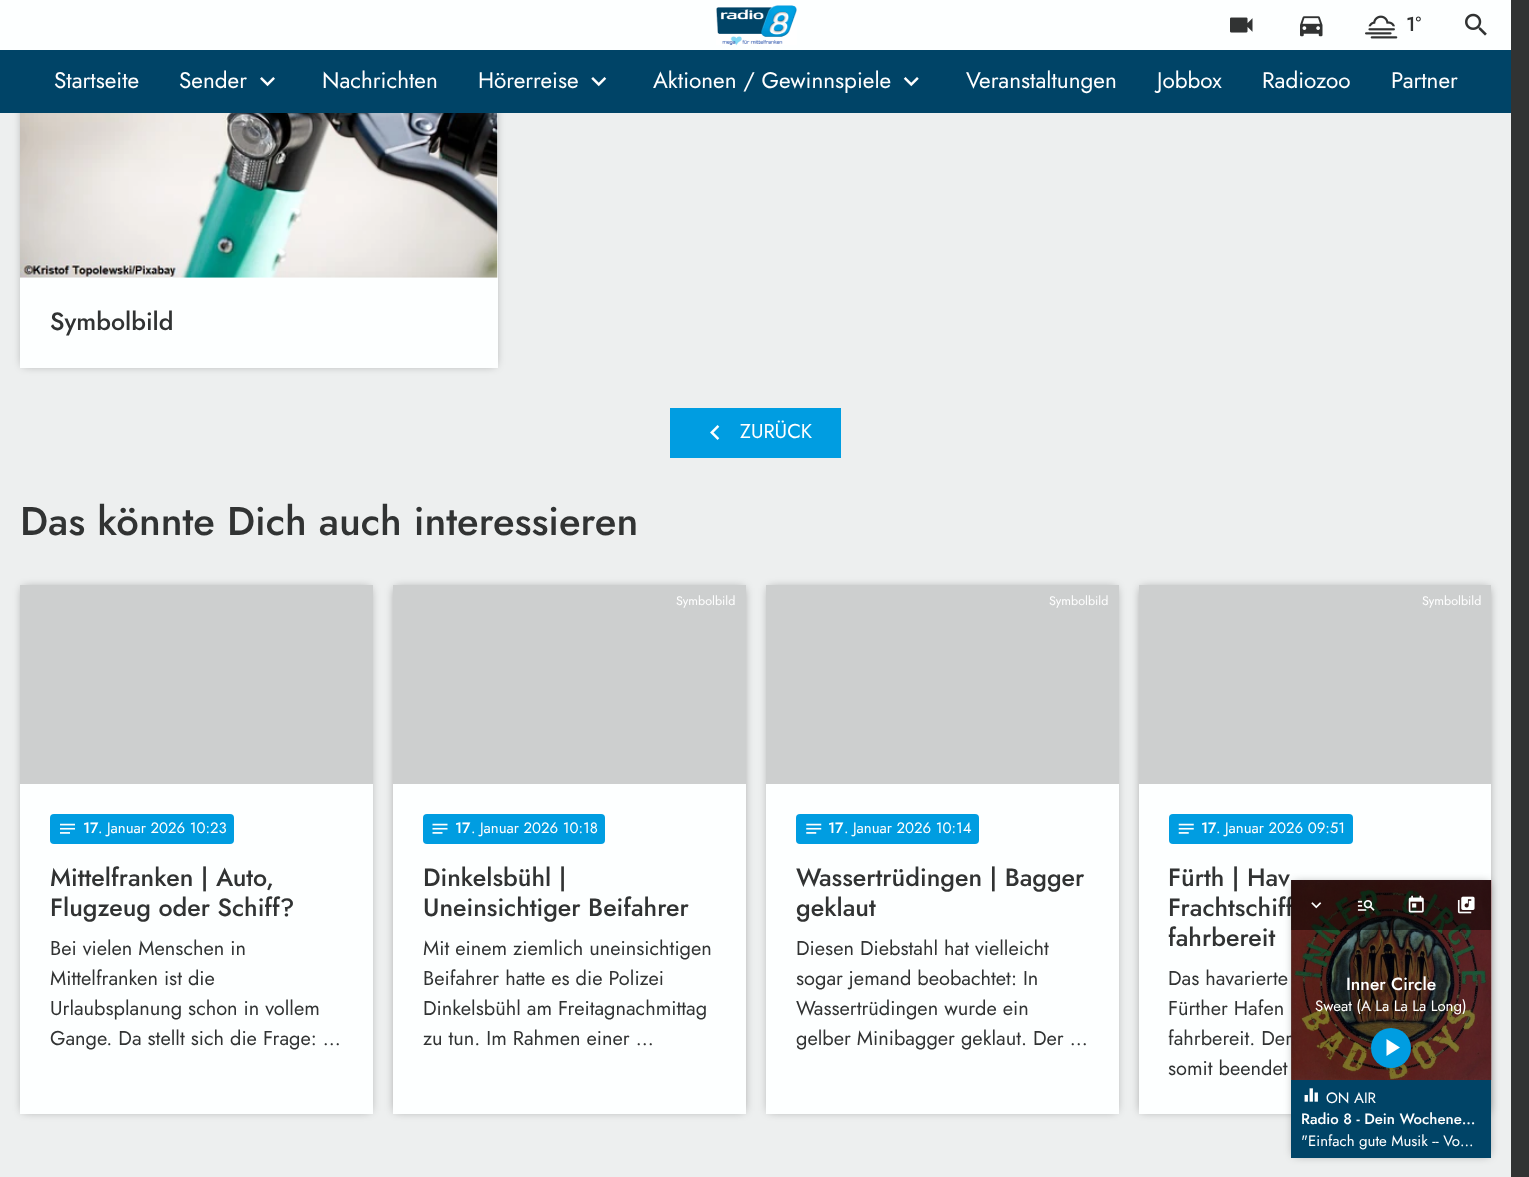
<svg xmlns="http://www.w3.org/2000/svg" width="1529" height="1177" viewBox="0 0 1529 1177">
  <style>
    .t1 { font: 500 20px Jost; fill: #313333; }
    .t2 { font: 22.5px Jost; fill: #fff; }
    .t3 { font: 500 25px Jost; fill: #313333; }
    .t4 { font: 20px Jost; fill: #fff; }
    .t5 { font: 500 40px Jost; fill: #313333; }
    .t6 { font: 500 15px Jost; fill: #fff; }
    .t7 { font: 15px Jost; fill: #fff; }
    .t8 { font: 20px Jost; fill: #313333; }
    .t9 { font: 12.5px Jost; fill: #fff; }
    .t10 { font: 500 17.5px Jost; fill: #fff; }
  </style>
  <rect width="100%" height="100%" fill="#313333"/>
  <rect x="0" y="113" width="1511" height="1064" fill="#edefef"/>
  <rect x="23" y="-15" width="472" height="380" fill="#00000066" filter="blur(5px)"/>
  <rect x="0" y="0" width="1511" height="50" fill="#fdffff"/>
  <image x="716" y="5" width="81" height="41" href="images/1.png"/>
  <image x="1230" y="17" width="23" height="16" href="images/2.png"/>
  <image x="1300" y="16" width="23" height="21" href="images/3.png"/>
  <image x="1365" y="15" width="33" height="24" href="images/4.png"/>
  <text x="1406" y="31" class="t1">1°</text>
  <image x="1465" y="13" width="22" height="23" href="images/5.png"/>
  <rect x="0" y="50" width="1511" height="63" fill="#004467"/>
  <text x="54" y="88" class="t2">Startseite</text>
  <text x="179" y="88" class="t2">Sender</text>
  <image x="260" y="77" width="15" height="10" href="images/6.png"/>
  <text x="322" y="88" class="t2">Nachrichten</text>
  <text x="478" y="88" class="t2">Hörerreise</text>
  <image x="591" y="77" width="16" height="10" href="images/7.png"/>
  <text x="653" y="88" class="t2">Aktionen / Gewinnspiele</text>
  <image x="903" y="77" width="16" height="10" href="images/8.png"/>
  <text x="966" y="88" class="t2">Veranstaltungen</text>
  <text x="1157" y="88" class="t2">Jobbox</text>
  <text x="1262" y="88" class="t2">Radiozoo</text>
  <text x="1391" y="88" class="t2">Partner</text>
  <rect x="20" y="113" width="478" height="255" fill="#fdffff"/>
  <image x="20" y="113" width="478" height="165" href="images/9.png"/>
  <text x="50" y="330" class="t3">Symbolbild</text>
  <rect x="670" y="408" width="171" height="50" fill="#009de1"/>
  <image x="710" y="425" width="10" height="15" href="images/10.png"/>
  <text x="740" y="438" class="t4">ZURÜCK</text>
  <text x="20" y="535" class="t5">Das könnte Dich auch interessieren</text>
  <rect x="23" y="588" width="347" height="523" fill="#00000066" filter="blur(5px)"/>
  <rect x="20" y="784" width="353" height="330" fill="#fdffff"/>
  <rect x="20" y="585" width="353" height="199" fill="#cdcfcf"/>
  <rect x="50" y="814" width="184" height="30" rx="4" fill="#009de1"/>
  <image x="60" y="823" width="15" height="11" href="images/11.png"/>
  <text x="83" y="833" class="t6">17</text>
  <text x="98" y="833" class="t7">. Januar 2026 10:23</text>
  <text x="50" y="886" class="t3">Mittelfranken | Auto,</text>
  <text x="50" y="916" class="t3">Flugzeug oder Schiff?</text>
  <text x="50" y="955" class="t8">Bei vielen Menschen in</text>
  <text x="50" y="985" class="t8">Mittelfranken ist die</text>
  <text x="50" y="1015" class="t8">Urlaubsplanung schon in vollem</text>
  <text x="50" y="1045" class="t8">Gange. Da stellt sich die Frage: …</text>
  <rect x="395" y="588" width="349" height="523" fill="#00000066" filter="blur(5px)"/>
  <rect x="393" y="784" width="353" height="330" fill="#fdffff"/>
  <rect x="393" y="585" width="353" height="199" fill="#cdcfcf"/>
  <text x="676" y="605" class="t9">Symbolbild</text>
  <rect x="423" y="814" width="182" height="30" rx="4" fill="#009de1"/>
  <image x="432" y="823" width="16" height="11" href="images/12.png"/>
  <text x="455" y="833" class="t6">17</text>
  <text x="471" y="833" class="t7">. Januar 2026 10:18</text>
  <text x="423" y="886" class="t3">Dinkelsbühl |</text>
  <text x="423" y="916" class="t3">Uneinsichtiger Beifahrer</text>
  <text x="423" y="955" class="t8">Mit einem ziemlich uneinsichtigen</text>
  <text x="423" y="985" class="t8">Beifahrer hatte es die Polizei</text>
  <text x="423" y="1015" class="t8">Dinkelsbühl am Freitagnachmittag</text>
  <text x="423" y="1045" class="t8">zu tun. Im Rahmen einer …</text>
  <rect x="769" y="588" width="347" height="523" fill="#00000066" filter="blur(5px)"/>
  <rect x="766" y="784" width="353" height="330" fill="#fdffff"/>
  <rect x="766" y="585" width="353" height="199" fill="#cdcfcf"/>
  <text x="1049" y="605" class="t9">Symbolbild</text>
  <rect x="796" y="814" width="183" height="30" rx="4" fill="#009de1"/>
  <image x="806" y="823" width="16" height="11" href="images/13.png"/>
  <text x="828" y="833" class="t6">17</text>
  <text x="844" y="833" class="t7">. Januar 2026 10:14</text>
  <text x="796" y="886" class="t3">Wassertrüdingen | Bagger</text>
  <text x="796" y="916" class="t3">geklaut</text>
  <text x="796" y="955" class="t8">Diesen Diebstahl hat vielleicht</text>
  <text x="796" y="985" class="t8">sogar jemand beobachtet: In</text>
  <text x="796" y="1015" class="t8">Wassertrüdingen wurde ein</text>
  <text x="796" y="1045" class="t8">gelber Minibagger geklaut. Der …</text>
  <rect x="1141" y="588" width="348" height="523" fill="#00000066" filter="blur(5px)"/>
  <rect x="1139" y="784" width="352" height="330" fill="#fdffff"/>
  <rect x="1139" y="585" width="352" height="199" fill="#cdcfcf"/>
  <text x="1422" y="605" class="t9">Symbolbild</text>
  <rect x="1169" y="814" width="184" height="30" rx="4" fill="#009de1"/>
  <image x="1178" y="823" width="16" height="11" href="images/14.png"/>
  <text x="1201" y="833" class="t6">17</text>
  <text x="1216" y="833" class="t7">. Januar 2026 09:51</text>
  <text x="1168" y="886" class="t3">Fürth | Hav</text>
  <text x="1168" y="916" class="t3">Frachtschiff</text>
  <text x="1168" y="946" class="t3">fahrbereit</text>
  <text x="1168" y="985" class="t8">Das havarierte</text>
  <text x="1168" y="1015" class="t8">Fürther Hafen</text>
  <text x="1168" y="1045" class="t8">fahrbereit. Der</text>
  <text x="1168" y="1075" class="t8">somit beendet</text>
  <rect x="1294" y="883" width="195" height="272" fill="#00000066" filter="blur(5px)"/>
  <image x="1291" y="880" width="201" height="200" href="images/19.png"/>
  <rect x="1291" y="880" width="200" height="200" fill="#00000080"/>
  <rect x="1291" y="880" width="200" height="50" fill="#00000080"/>
  <image x="1311" y="902" width="11" height="7" href="images/15.png"/>
  <image x="1357" y="900" width="18" height="11" href="images/16.png"/>
  <image x="1408" y="895" width="16" height="18" href="images/17.png"/>
  <image x="1457" y="896" width="18" height="18" href="images/18.png"/>
  <text x="1346" y="990" class="t10">Inner Circle</text>
  <text x="1315" y="1011" class="t7">Sweat (A La La La Long)</text>
  <circle cx="1391" cy="1048" r="20" fill="#009de1"/>
  <path d="M1386.5 1039L1400 1047.5L1386.5 1056Z" fill="#fff"/>
  <rect x="1291" y="1080" width="200" height="78" fill="#004467"/>
  <image x="1304" y="1088" width="14" height="14" href="images/20.png"/>
  <text x="1326" y="1103" class="t7">ON AIR</text>
  <text x="1301" y="1124" class="t6">Radio 8 - Dein Wochene…</text>
  <text x="1301" y="1146" class="t7">"Einfach gute Musik -- Vo…</text>
</svg>
